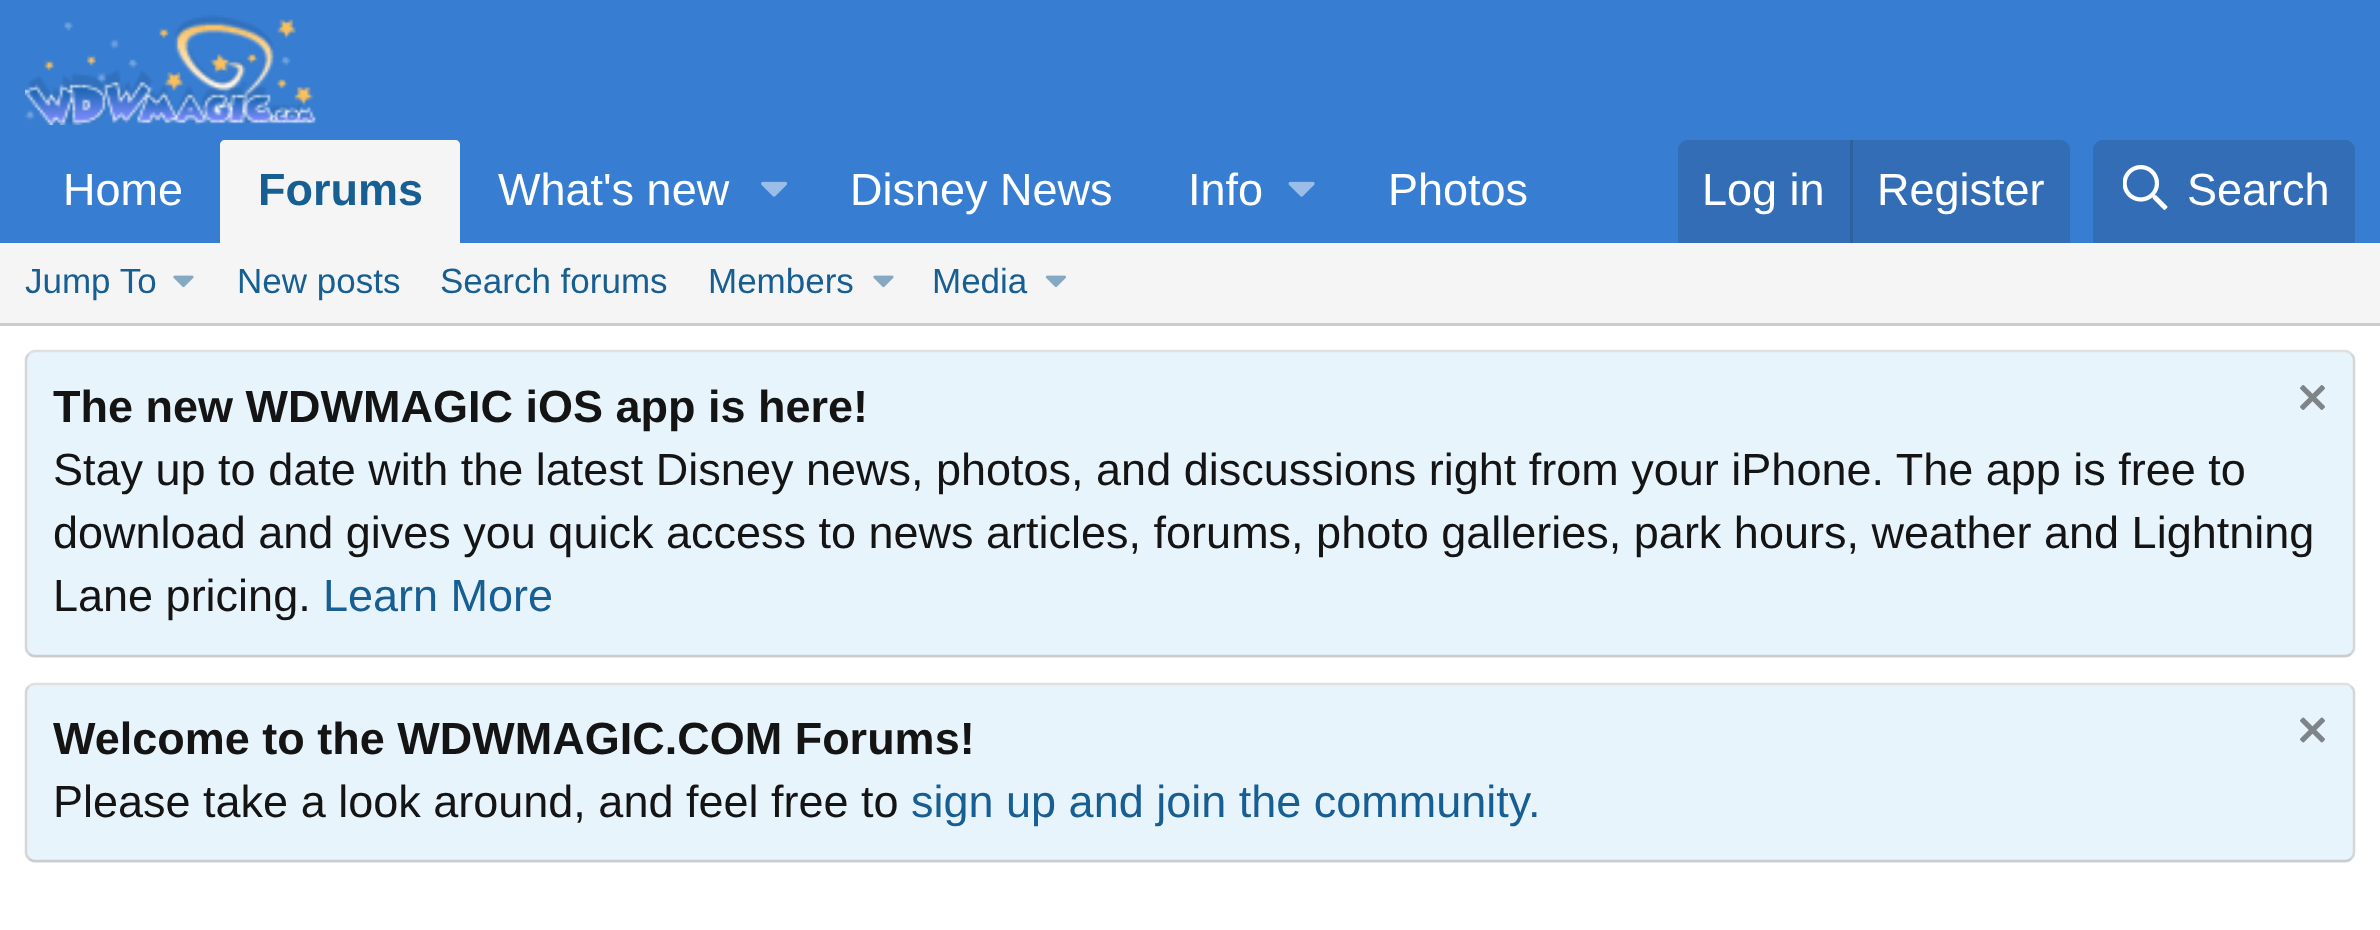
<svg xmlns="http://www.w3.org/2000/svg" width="2380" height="930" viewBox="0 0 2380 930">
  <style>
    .t1 { font: 45px Liberation Sans; fill: #fff; }
    .t2 { font: bold 45px Liberation Sans; fill: #175e92; }
    .t3 { font: 35px Liberation Sans; fill: #175e92; }
    .t4 { font: bold 45px Liberation Sans; fill: #141414; }
    .t5 { font: 45px Liberation Sans; fill: #141414; }
    .t6 { font: 45px Liberation Sans; fill: #175e92; }
  </style>
  <rect width="100%" height="100%" fill="#fff"/>
  <rect x="0" y="0" width="2380" height="243" fill="#377dd2"/>
  <image x="25" y="15" width="291" height="110" href="images/1.png"/>
  <text x="63" y="205" class="t1">Home</text>
  <path d="M225 140H455C458 140 460 142 460 145V243H220V145C220 142 222 140 225 140Z" fill="#f5f5f5"/>
  <text x="258" y="205" class="t2">Forums</text>
  <text x="498" y="205" class="t1">What's new</text>
  <image x="761" y="181" width="27" height="16" href="images/2.png"/>
  <text x="850" y="205" class="t1">Disney News</text>
  <text x="1188" y="205" class="t1">Info</text>
  <image x="1288" y="181" width="27" height="16" href="images/3.png"/>
  <text x="1388" y="205" class="t1">Photos</text>
  <path d="M1688 140H2060C2065.5 140 2070 144.5 2070 150V243H1678V150C1678 144.5 1682.5 140 1688 140Z" fill="#326db6"/>
  <text x="1702" y="205" class="t1">Log in</text>
  <rect x="1850" y="140" width="3" height="103" fill="#2e609e"/>
  <text x="1877" y="205" class="t1">Register</text>
  <path d="M2103 140H2345C2350.5 140 2355 144.5 2355 150V243H2093V150C2093 144.5 2097.5 140 2103 140Z" fill="#326db6"/>
  <image x="2123" y="165" width="45" height="45" href="images/4.png"/>
  <text x="2187" y="205" class="t1">Search</text>
  <rect x="0" y="243" width="2380" height="80" fill="#f5f5f5"/>
  <rect x="0" y="323" width="2380" height="3" fill="#ccc"/>
  <text x="25" y="293" class="t3">Jump To</text>
  <image x="173" y="275" width="21" height="13" href="images/5.png"/>
  <text x="237" y="293" class="t3">New posts</text>
  <text x="440" y="293" class="t3">Search forums</text>
  <text x="708" y="293" class="t3">Members</text>
  <image x="873" y="275" width="21" height="13" href="images/5.png"/>
  <text x="932" y="293" class="t3">Media</text>
  <image x="1045" y="275" width="21" height="13" href="images/6.png"/>
  <rect x="25" y="350" width="2330" height="308" rx="10" fill="#e8f4fc"/>
  <path d="M29 354C30.5 352 32.5 351 35 351H2345C2347.5 351 2349.5 352 2351 354" fill="none" stroke="#e0e0e0" stroke-width="2.5"/>
  <path d="M2351 354C2353 355.5 2354 357.5 2354 360V647.5C2354 650 2353 652 2351 653.5" fill="none" stroke="#d6d6d6" stroke-width="2.5"/>
  <path d="M2351 653.5C2349.5 655.5 2347.5 656 2345 656H35C32.5 656 30.5 655.5 29 653.5" fill="none" stroke="#ccc" stroke-width="2.5"/>
  <path d="M29 653.5C27 652 26 650 26 647.5V360C26 357.5 27 355.5 29 354" fill="none" stroke="#d6d6d6" stroke-width="2.5"/>
  <text x="53" y="422" class="t4">The new WDWMAGIC iOS app is here!</text>
  <image x="2300" y="385" width="25" height="25" href="images/7.png"/>
  <text x="53" y="485" class="t5">Stay up to date with the latest Disney news, photos, and discussions right from your iPhone. The app is free to</text>
  <text x="53" y="548" class="t5">download and gives you quick access to news articles, forums, photo galleries, park hours, weather and Lightning</text>
  <text x="53" y="611" class="t5">Lane pricing.</text>
  <text x="323" y="611" class="t6">Learn More</text>
  <rect x="25" y="683" width="2330" height="180" rx="10" fill="#e8f4fc"/>
  <path d="M29 686.5C30.5 684.5 32.5 684 35 684H2345C2347.5 684 2349.5 684.5 2351 686.5" fill="none" stroke="#e0e0e0" stroke-width="2.5"/>
  <path d="M2351 686.5C2353 688 2354 690 2354 692.5V852.5C2354 855 2353 857 2351 858.5" fill="none" stroke="#d6d6d6" stroke-width="2.5"/>
  <path d="M2351 858.5C2349.5 860.5 2347.5 861 2345 861H35C32.5 861 30.5 860.5 29 858.5" fill="none" stroke="#ccc" stroke-width="2.5"/>
  <path d="M29 858.5C27 857 26 855 26 852.5V692.5C26 690 27 688 29 686.5" fill="none" stroke="#d6d6d6" stroke-width="2.5"/>
  <text x="53" y="754" class="t4">Welcome to the WDWMAGIC.COM Forums!</text>
  <image x="2300" y="717" width="25" height="26" href="images/8.png"/>
  <text x="53" y="817" class="t5">Please take a look around, and feel free to</text>
  <text x="911" y="817" class="t6">sign up and join the community.</text>
</svg>
